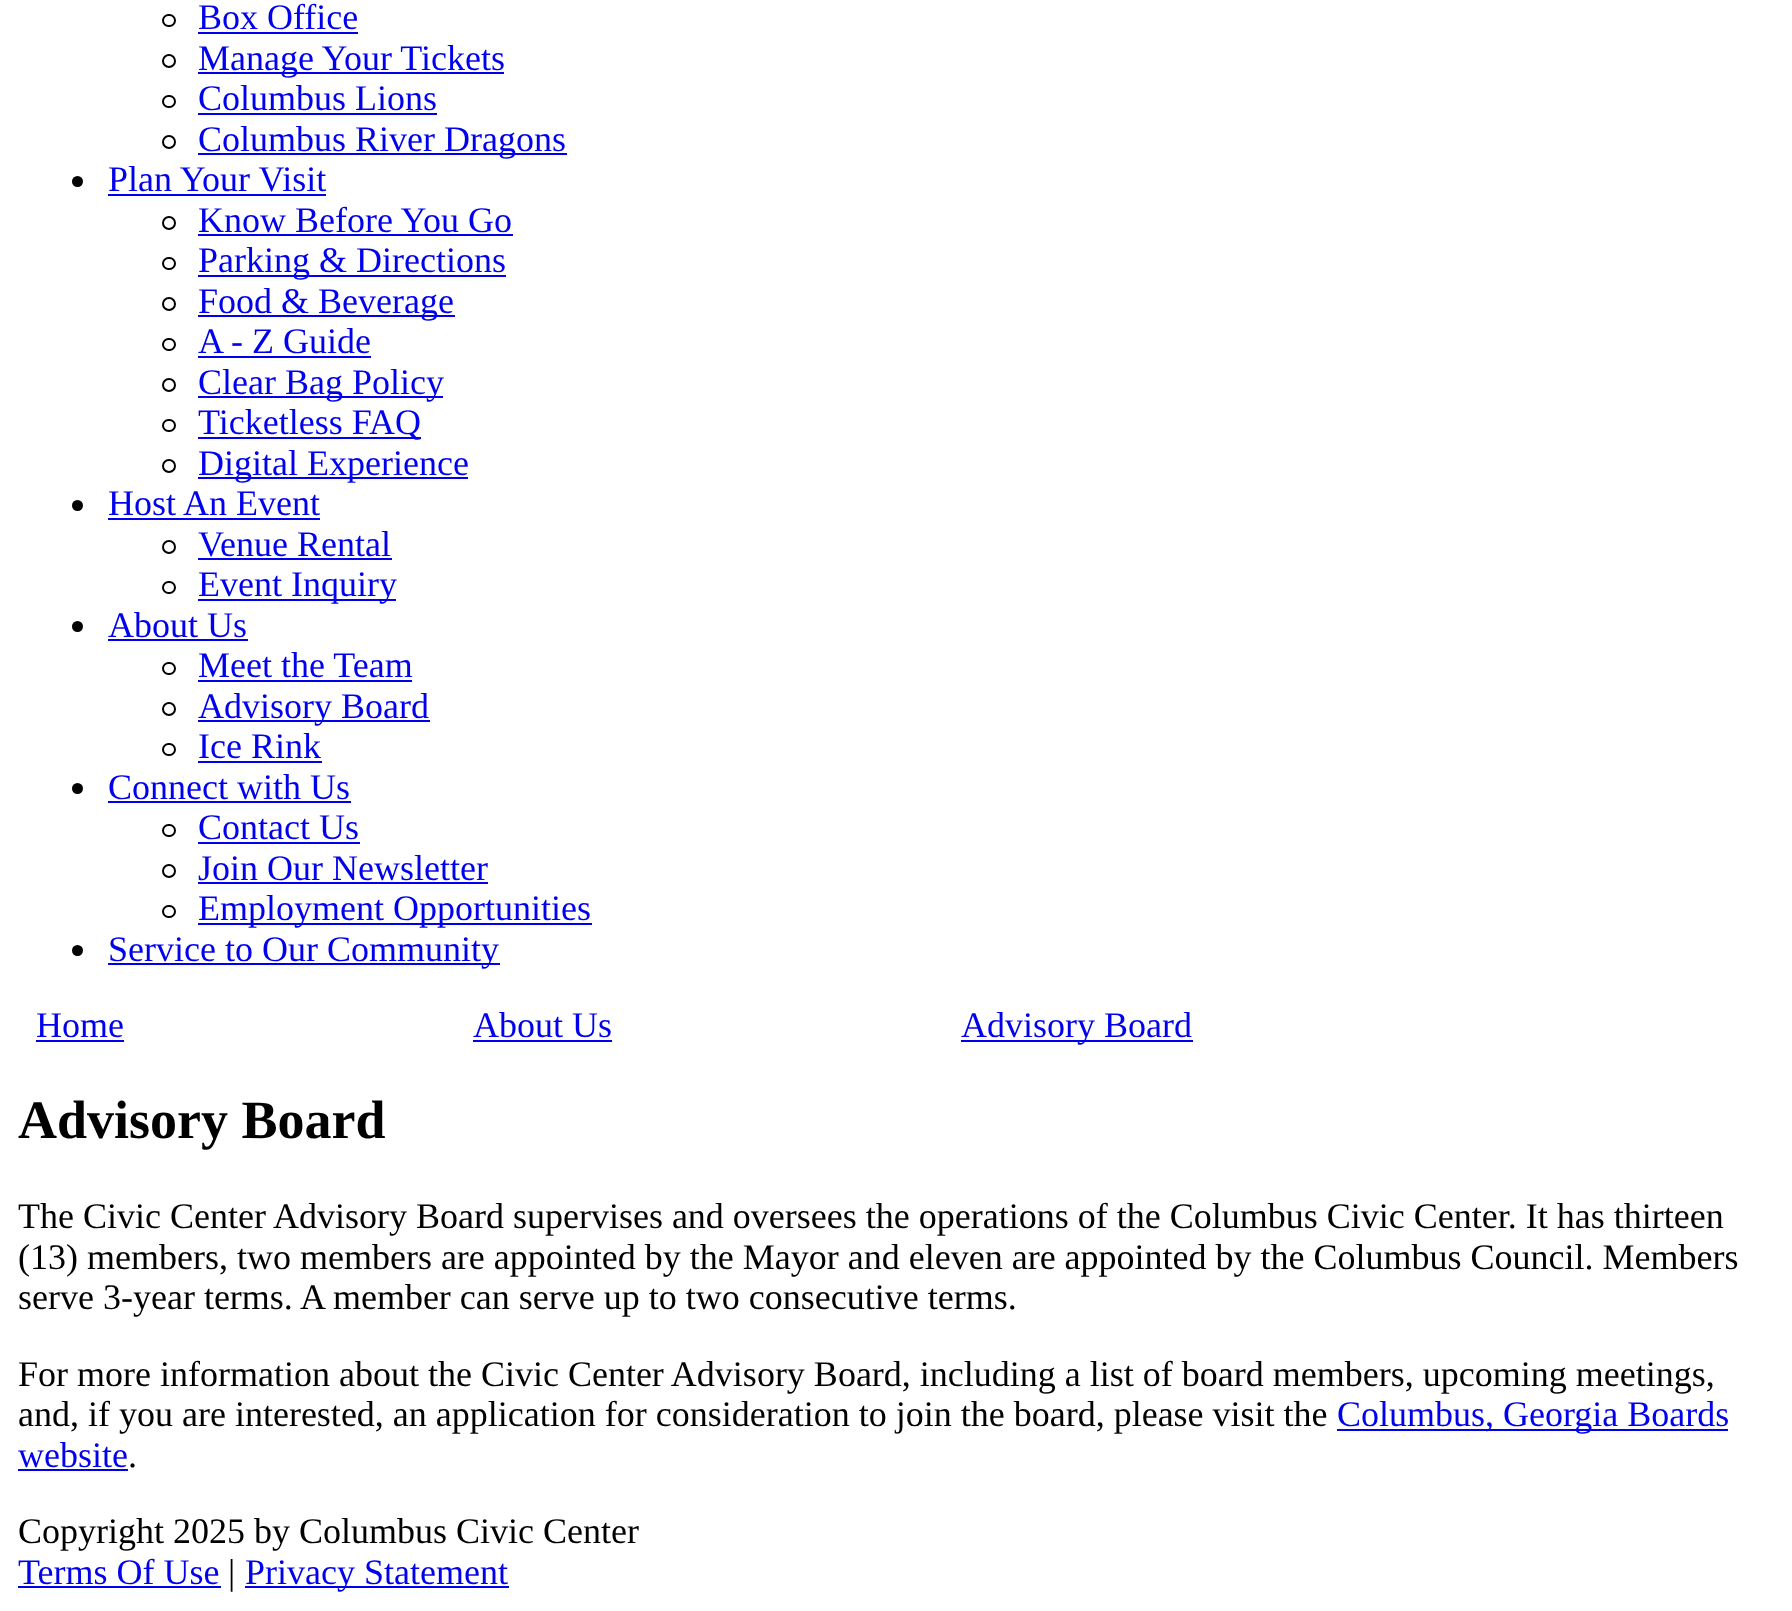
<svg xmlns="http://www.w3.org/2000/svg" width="1792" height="1611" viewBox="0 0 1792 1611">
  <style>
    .t1 { font: 36px Liberation Serif; fill: #00e; }
    .t2 { font: bold 54px Liberation Serif; fill: #000; }
    .t3 { font: 36px Liberation Serif; fill: #000; }
  </style>
  <rect width="100%" height="100%" fill="#fff"/>
  <rect x="163" y="15" width="12" height="11" rx="5.5" fill="none" stroke="#000" stroke-width="2"/>
  <text x="198" y="29" class="t1">Box Office</text>
  <rect x="198" y="32" width="160" height="2" fill="#00e"/>
  <circle cx="169" cy="61" r="6" fill="none" stroke="#000" stroke-width="2"/>
  <rect x="198" y="72" width="306" height="2" fill="#00e"/>
  <text x="198" y="70" class="t1">Manage Your Tickets</text>
  <rect x="163" y="96" width="12" height="11" rx="5.5" fill="none" stroke="#000" stroke-width="2"/>
  <text x="198" y="110" class="t1">Columbus Lions</text>
  <rect x="198" y="113" width="239" height="2" fill="#00e"/>
  <circle cx="169" cy="142" r="6" fill="none" stroke="#000" stroke-width="2"/>
  <rect x="198" y="153" width="369" height="2" fill="#00e"/>
  <text x="198" y="151" class="t1">Columbus River Dragons</text>
  <circle cx="77.5" cy="181.5" r="5.5" fill="#000"/>
  <text x="108" y="191" class="t1">Plan Your Visit</text>
  <rect x="108" y="194" width="218" height="2" fill="#00e"/>
  <circle cx="169" cy="223" r="6" fill="none" stroke="#000" stroke-width="2"/>
  <text x="198" y="232" class="t1">Know Before You Go</text>
  <rect x="198" y="234" width="315" height="2" fill="#00e"/>
  <rect x="163" y="258" width="12" height="11" rx="5.5" fill="none" stroke="#000" stroke-width="2"/>
  <rect x="198" y="275" width="308" height="2" fill="#00e"/>
  <text x="198" y="272" class="t1">Parking &amp; Directions</text>
  <circle cx="169" cy="304" r="6" fill="none" stroke="#000" stroke-width="2"/>
  <rect x="198" y="315" width="257" height="2" fill="#00e"/>
  <text x="198" y="313" class="t1">Food &amp; Beverage</text>
  <rect x="163" y="339" width="12" height="11" rx="5.5" fill="none" stroke="#000" stroke-width="2"/>
  <text x="198" y="353" class="t1">A - Z Guide</text>
  <rect x="198" y="356" width="173" height="2" fill="#00e"/>
  <circle cx="169" cy="385" r="6" fill="none" stroke="#000" stroke-width="2"/>
  <rect x="198" y="396" width="245" height="2" fill="#00e"/>
  <text x="198" y="394" class="t1">Clear Bag Policy</text>
  <rect x="163" y="420" width="12" height="11" rx="5.5" fill="none" stroke="#000" stroke-width="2"/>
  <rect x="198" y="437" width="223" height="2" fill="#00e"/>
  <text x="198" y="434" class="t1">Ticketless FAQ</text>
  <circle cx="169" cy="466" r="6" fill="none" stroke="#000" stroke-width="2"/>
  <rect x="198" y="477" width="270" height="2" fill="#00e"/>
  <text x="198" y="475" class="t1">Digital Experience</text>
  <circle cx="77.5" cy="505.5" r="5.5" fill="#000"/>
  <text x="108" y="515" class="t1">Host An Event</text>
  <rect x="108" y="518" width="212" height="2" fill="#00e"/>
  <circle cx="169" cy="547" r="6" fill="none" stroke="#000" stroke-width="2"/>
  <text x="198" y="556" class="t1">Venue Rental</text>
  <rect x="198" y="558" width="194" height="2" fill="#00e"/>
  <rect x="163" y="582" width="12" height="11" rx="5.5" fill="none" stroke="#000" stroke-width="2"/>
  <rect x="198" y="599" width="198" height="2" fill="#00e"/>
  <text x="198" y="596" class="t1">Event Inquiry</text>
  <circle cx="77.5" cy="626.5" r="5.5" fill="#000"/>
  <text x="108" y="637" class="t1">About Us</text>
  <rect x="108" y="639" width="140" height="2" fill="#00e"/>
  <rect x="163" y="663" width="12" height="11" rx="5.5" fill="none" stroke="#000" stroke-width="2"/>
  <text x="198" y="677" class="t1">Meet the Team</text>
  <rect x="198" y="680" width="214" height="2" fill="#00e"/>
  <circle cx="169" cy="709" r="6" fill="none" stroke="#000" stroke-width="2"/>
  <rect x="198" y="720" width="232" height="2" fill="#00e"/>
  <text x="198" y="718" class="t1">Advisory Board</text>
  <rect x="163" y="744" width="12" height="11" rx="5.5" fill="none" stroke="#000" stroke-width="2"/>
  <text x="198" y="758" class="t1">Ice Rink</text>
  <rect x="198" y="761" width="124" height="2" fill="#00e"/>
  <circle cx="77.5" cy="788.5" r="5.5" fill="#000"/>
  <text x="108" y="799" class="t1">Connect with Us</text>
  <rect x="108" y="801" width="243" height="2" fill="#00e"/>
  <rect x="163" y="825" width="12" height="11" rx="5.5" fill="none" stroke="#000" stroke-width="2"/>
  <text x="198" y="839" class="t1">Contact Us</text>
  <rect x="198" y="842" width="162" height="2" fill="#00e"/>
  <circle cx="169" cy="871" r="6" fill="none" stroke="#000" stroke-width="2"/>
  <text x="198" y="880" class="t1">Join Our Newsletter</text>
  <rect x="198" y="882" width="290" height="2" fill="#00e"/>
  <rect x="163" y="906" width="12" height="11" rx="5.5" fill="none" stroke="#000" stroke-width="2"/>
  <rect x="198" y="923" width="394" height="2" fill="#00e"/>
  <text x="198" y="920" class="t1">Employment Opportunities</text>
  <circle cx="77.5" cy="950.5" r="5.5" fill="#000"/>
  <rect x="108" y="963" width="392" height="2" fill="#00e"/>
  <text x="108" y="961" class="t1">Service to Our Community</text>
  <text x="36" y="1037" class="t1">Home</text>
  <rect x="36" y="1040" width="88" height="2" fill="#00e"/>
  <text x="473" y="1037" class="t1">About Us</text>
  <rect x="473" y="1040" width="139" height="2" fill="#00e"/>
  <rect x="961" y="1040" width="232" height="2" fill="#00e"/>
  <text x="961" y="1037" class="t1">Advisory Board</text>
  <text x="18" y="1138" class="t2">Advisory Board</text>
  <text x="18" y="1228" class="t3">The Civic Center Advisory Board supervises and oversees the operations of the Columbus Civic Center. It has thirteen</text>
  <text x="18" y="1269" class="t3">(13) members, two members are appointed by the Mayor and eleven are appointed by the Columbus Council. Members</text>
  <text x="18" y="1309" class="t3">serve 3-year terms. A member can serve up to two consecutive terms.</text>
  <text x="18" y="1386" class="t3">For more information about the Civic Center Advisory Board, including a list of board members, upcoming meetings,</text>
  <text x="18" y="1426" class="t3">and, if you are interested, an application for consideration to join the board, please visit the</text>
  <rect x="1337" y="1429" width="391" height="2" fill="#00e"/>
  <text x="1337" y="1426" class="t1">Columbus, Georgia Boards</text>
  <text x="18" y="1467" class="t1">website</text>
  <rect x="18" y="1469" width="110" height="2" fill="#00e"/>
  <text x="128" y="1467" class="t3">.</text>
  <text x="18" y="1543" class="t3">Copyright 2025 by Columbus Civic Center</text>
  <text x="18" y="1584" class="t1">Terms Of Use</text>
  <rect x="18" y="1586" width="203" height="2" fill="#00e"/>
  <text x="228" y="1584" class="t3">|</text>
  <rect x="245" y="1586" width="264" height="2" fill="#00e"/>
  <text x="245" y="1584" class="t1">Privacy Statement</text>
</svg>
